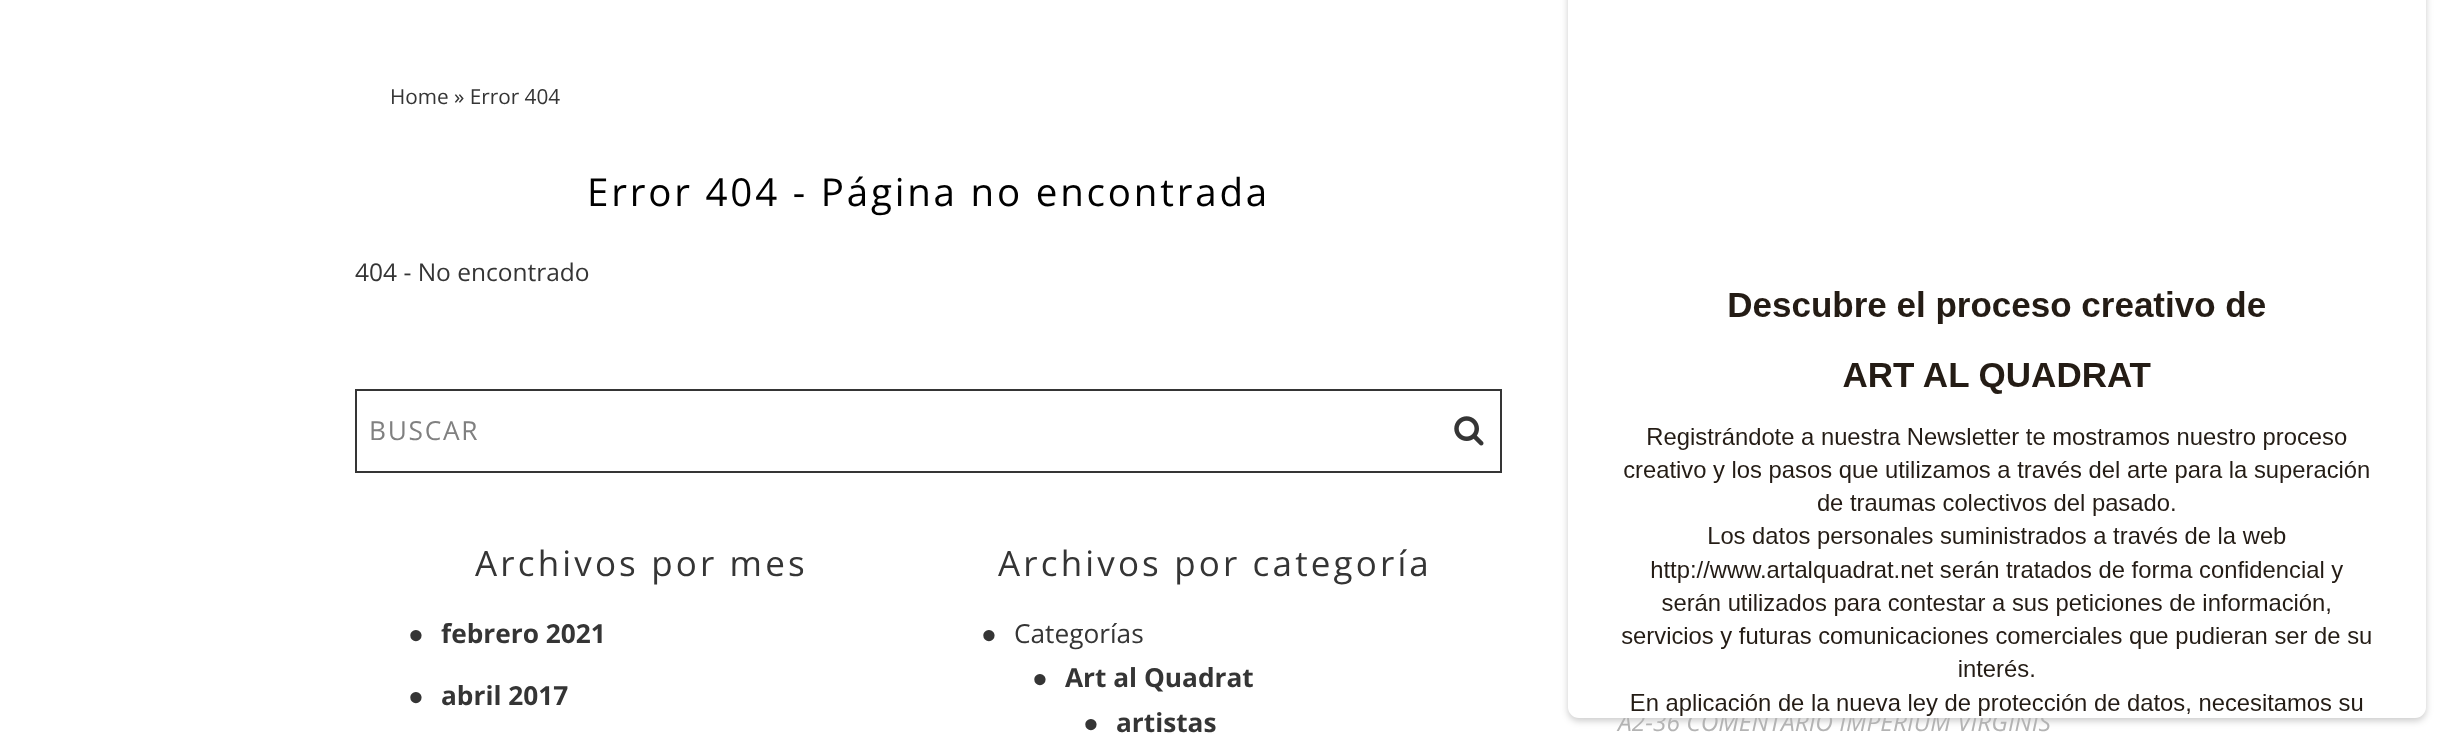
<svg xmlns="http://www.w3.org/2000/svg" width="2459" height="752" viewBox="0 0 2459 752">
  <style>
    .t1 { font: italic 24.5px Open Sans; fill: #b3b3b3; }
    .t2 { font: 20.75px Open Sans; fill: #353535; }
    .t3 { font: 38.5px Open Sans; letter-spacing: 2.8px; fill: #000; }
    .t4 { font: 24.5px Open Sans; fill: #353535; }
    .t5 { font: 26.25px Open Sans; letter-spacing: 1.75px; fill: #808080; }
    .t6 { font: 35px Open Sans; letter-spacing: 3.15px; fill: #353535; }
    .t7 { font: 26.25px Liberation Serif; fill: #353535; }
    .t8 { font: bold 26.25px Open Sans; fill: #353535; }
    .t9 { font: 26.25px Open Sans; fill: #353535; }
  </style>
  <rect width="100%" height="100%" fill="#fff"/>
  <rect x="1568" y="-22" width="858" height="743" rx="11" fill="#00000033" filter="blur(3.5px)"/>
  <text x="1618" y="731" class="t1">A2-36 COMENTARIO IMPERIUM VIRGINIS</text>
  <rect x="1568" y="-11" width="858" height="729" rx="11" fill="#fff"/>
  <image x="1622" y="291" width="749" height="425" href="images/1.png"/>
  <text x="390" y="104" class="t2">Home » Error 404</text>
  <text x="587" y="206" class="t3">Error 404 - Página no encontrada</text>
  <text x="355" y="281" class="t4">404 - No encontrado</text>
  <rect x="356" y="390" width="1145" height="82" fill="none" stroke="#353535" stroke-width="2"/>
  <text x="369" y="440" class="t5">BUSCAR</text>
  <image x="1454" y="416" width="30" height="30" href="images/2.png"/>
  <text x="475" y="576" class="t6">Archivos por mes</text>
  <text x="408" y="643" class="t7">●</text>
  <text x="441" y="643" class="t8">febrero 2021</text>
  <text x="408" y="705" class="t7">●</text>
  <text x="441" y="705" class="t8">abril 2017</text>
  <text x="998" y="576" class="t6">Archivos por categoría</text>
  <text x="981" y="643" class="t7">●</text>
  <text x="1014" y="643" class="t9">Categorías</text>
  <text x="1032" y="687" class="t7">●</text>
  <text x="1065" y="687" class="t8">Art al Quadrat</text>
  <text x="1083" y="732" class="t7">●</text>
  <text x="1116" y="732" class="t8">artistas</text>
</svg>
